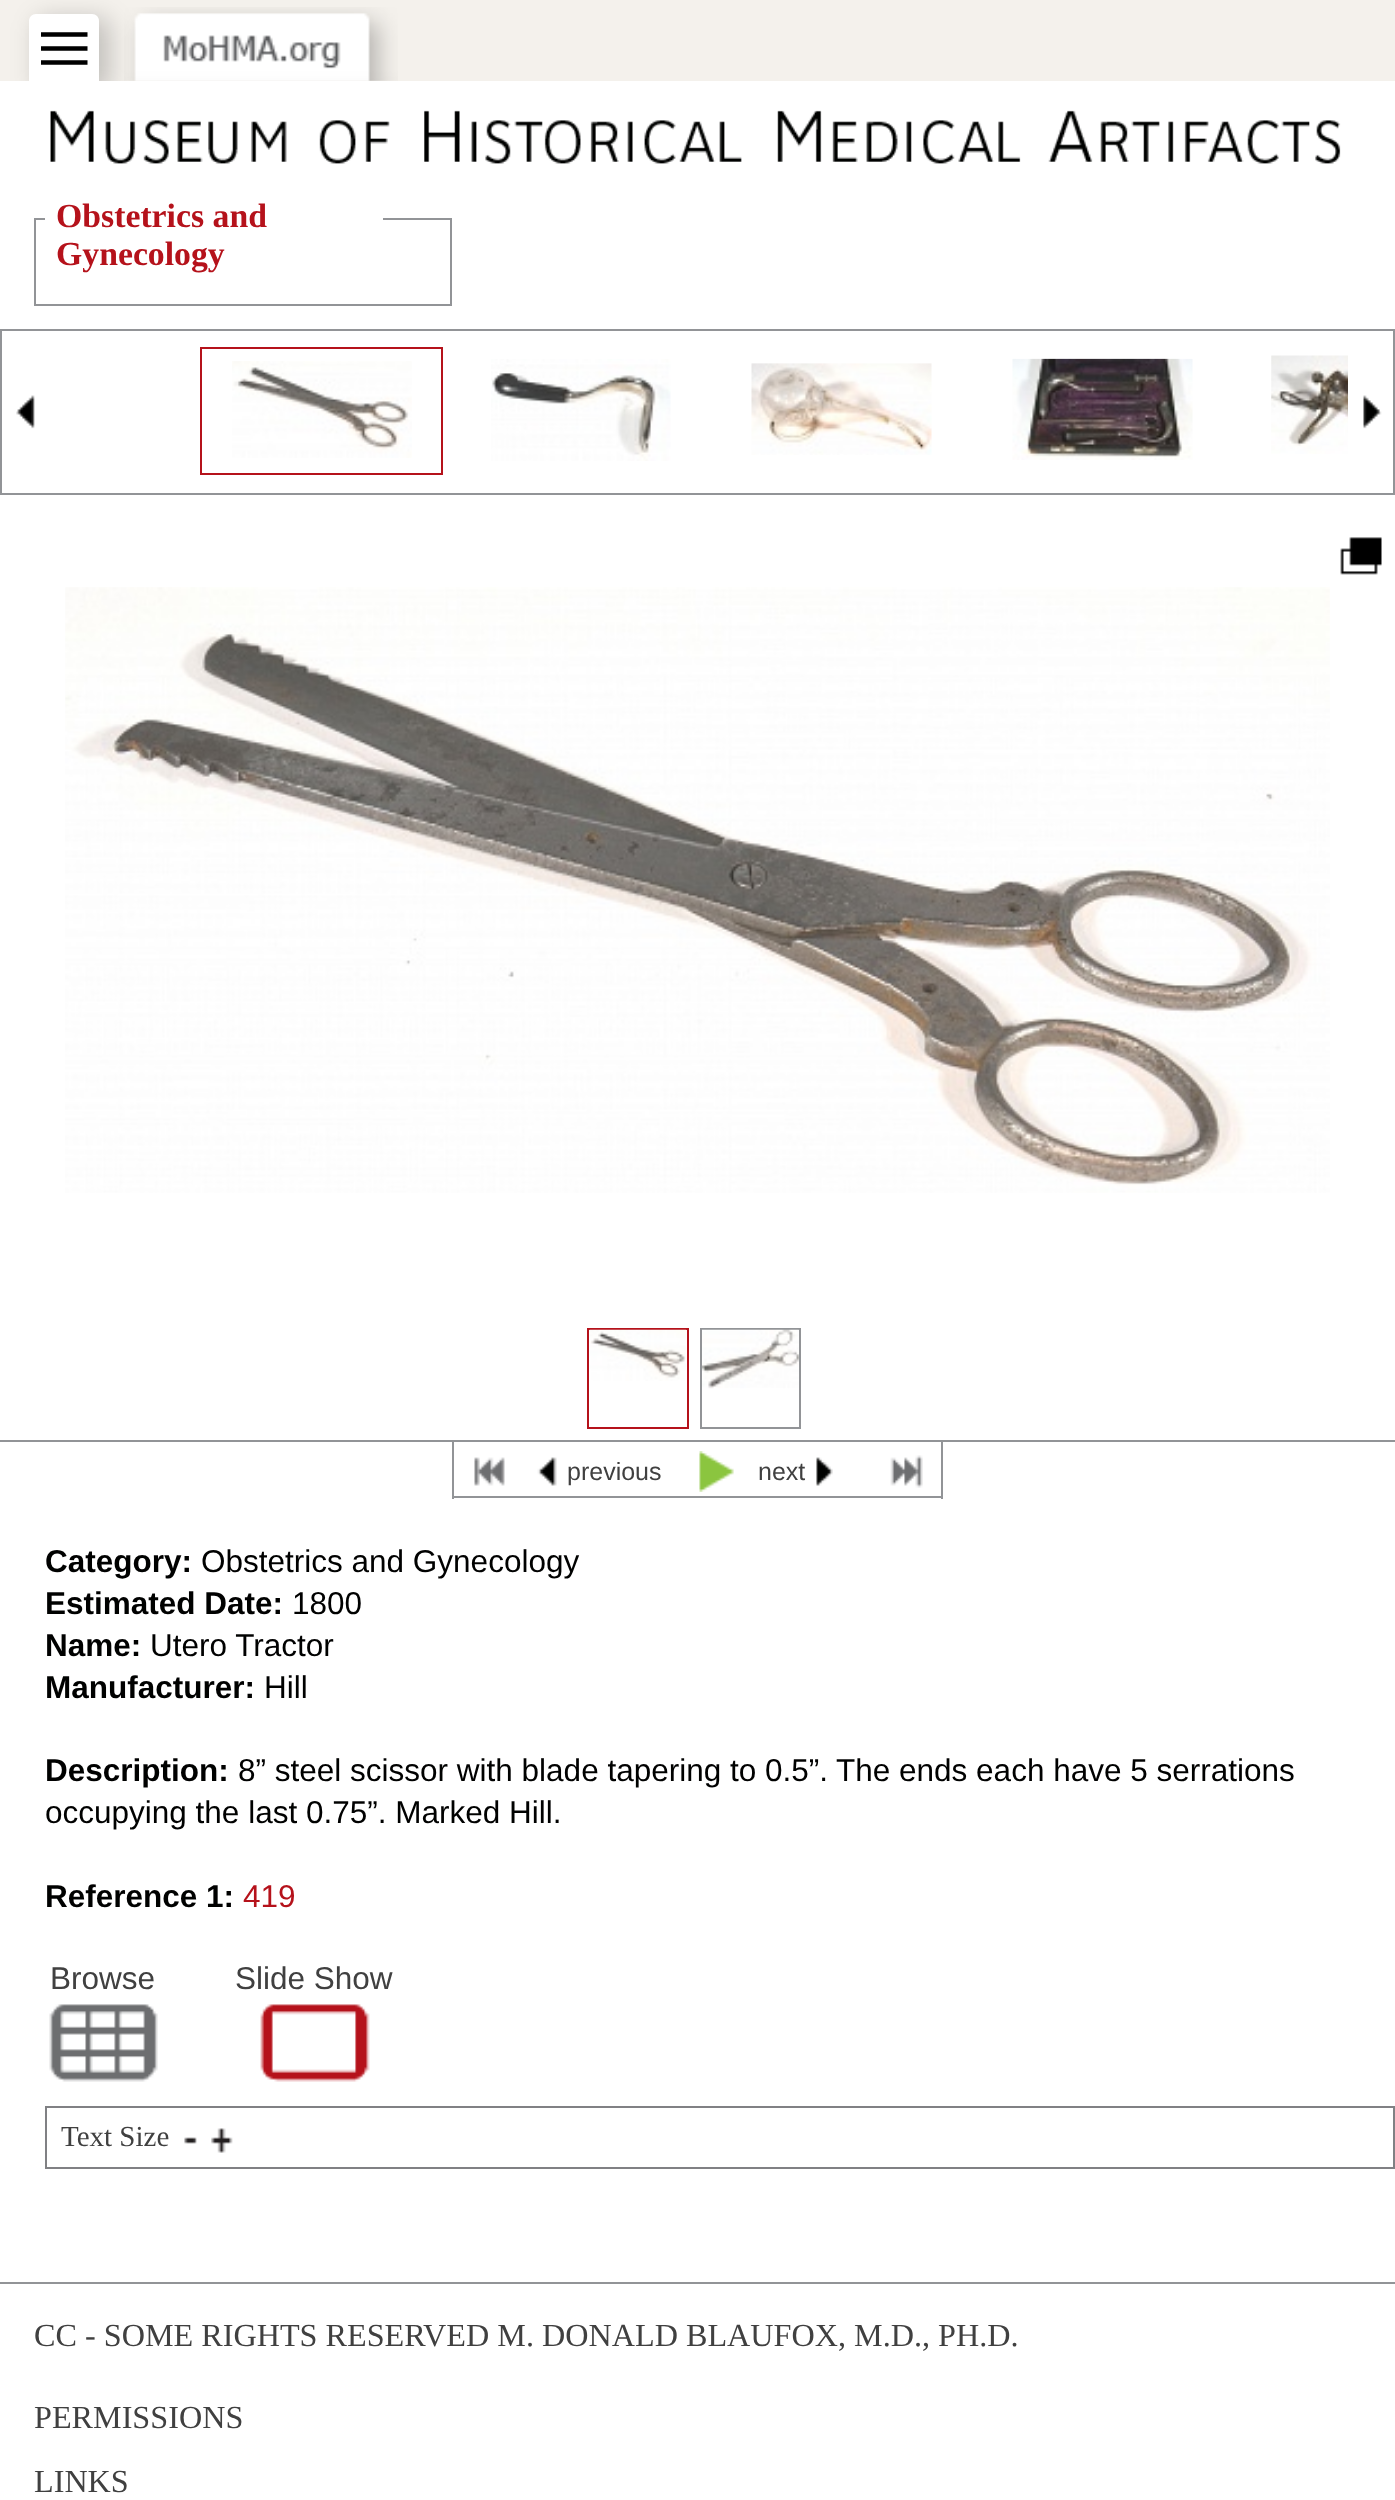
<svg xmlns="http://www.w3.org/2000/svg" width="1395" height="2500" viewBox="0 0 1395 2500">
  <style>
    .t1 { font: bold 33.75px Liberation Serif; fill: #b5121b; }
    .t2 { font: 25px Liberation Sans; fill: #404040; }
    .t3 { font: bold 31.5px Liberation Sans; fill: #000100; }
    .t4 { font: 31.5px Liberation Sans; fill: #000100; }
    .t5 { font: 31.5px Liberation Sans; fill: #b5121b; }
    .t6 { font: 31.5px Liberation Sans; fill: #404040; }
    .t7 { font: 29px Liberation Serif; fill: #404040; }
    .t8 { font: 32.2px Liberation Serif; fill: #404040; }
  </style>
  <rect width="100%" height="100%" fill="#f4f1ec"/>
  <image x="124" y="7" width="274" height="74" href="images/1.png"/>
  <rect x="36" y="18" width="74" height="74" rx="9" fill="#00000033" filter="blur(12.5px)"/>
  <path d="M36 14H92C96 14 99 17 99 21V83H29V21C29 17 32 14 36 14Z" fill="#fff"/>
  <path d="M41 48.5H87.5M41 34.5H87.5M41 62.5H87.5" fill="none" stroke="#000" stroke-width="4.7"/>
  <rect x="0" y="81" width="1395" height="122" fill="#fff"/>
  <image x="50" y="110" width="1291" height="54" href="images/2.png"/>
  <rect x="0" y="203" width="1395" height="2079" fill="#fff"/>
  <rect x="35" y="219" width="416" height="86" fill="none" stroke="#929497" stroke-width="2"/>
  <rect x="45" y="218" width="338" height="2" fill="#fff"/>
  <text x="56" y="227" class="t1">Obstetrics and</text>
  <text x="56" y="265" class="t1">Gynecology</text>
  <rect x="1" y="330" width="1393" height="164" fill="none" stroke="#929497" stroke-width="2"/>
  <image x="16" y="395" width="19" height="34" href="images/3.png"/>
  <rect x="201" y="348" width="241" height="126" fill="none" stroke="#b5121b" stroke-width="2"/>
  <image x="232" y="361" width="180" height="97" href="images/4.png"/>
  <image x="491" y="359" width="180" height="102" href="images/5.png"/>
  <image x="751" y="363" width="181" height="92" href="images/6.png"/>
  <image x="1012" y="358" width="181" height="102" href="images/7.png"/>
  <image x="1271" y="355" width="77" height="99" href="images/8.png"/>
  <image x="1363" y="395" width="19" height="34" href="images/9.png"/>
  <image x="1340" y="537" width="42" height="38" href="images/10.png"/>
  <image x="65" y="587" width="1265" height="606" href="images/11.png"/>
  <rect x="588" y="1329" width="100" height="99" fill="none" stroke="#b5121b" stroke-width="2"/>
  <image x="589" y="1329" width="98" height="52" href="images/12.png"/>
  <rect x="701" y="1329" width="99" height="99" fill="none" stroke="#929497" stroke-width="2"/>
  <image x="702" y="1329" width="97" height="60" href="images/13.png"/>
  <rect x="0" y="1440" width="1395" height="2" fill="#929497"/>
  <rect x="941" y="1442" width="2" height="57" fill="#929497"/>
  <rect x="452" y="1496" width="491" height="2" fill="#929497"/>
  <rect x="452" y="1442" width="2" height="57" fill="#929497"/>
  <image x="474" y="1457" width="31" height="29" href="images/14.png"/>
  <image x="537" y="1457" width="20" height="29" href="images/15.png"/>
  <text x="567" y="1480" class="t2">previous</text>
  <image x="699" y="1451" width="35" height="41" href="images/16.png"/>
  <text x="758" y="1480" class="t2">next</text>
  <image x="816" y="1457" width="17" height="29" href="images/17.png"/>
  <image x="890" y="1455" width="33" height="33" href="images/18.png"/>
  <text x="45" y="1572" class="t3">Category:</text>
  <text x="201" y="1572" class="t4">Obstetrics and Gynecology</text>
  <text x="45" y="1614" class="t3">Estimated Date:</text>
  <text x="292" y="1614" class="t4">1800</text>
  <text x="45" y="1656" class="t3">Name:</text>
  <text x="150" y="1656" class="t4">Utero Tractor</text>
  <text x="45" y="1698" class="t3">Manufacturer:</text>
  <text x="264" y="1698" class="t4">Hill</text>
  <text x="45" y="1781" class="t3">Description:</text>
  <text x="238" y="1781" class="t4">8” steel scissor with blade tapering to 0.5”.</text>
  <text x="836" y="1781" class="t4">The ends each have 5 serrations</text>
  <text x="45" y="1823" class="t4">occupying the last 0.75”. Marked Hill.</text>
  <text x="45" y="1907" class="t3">Reference 1:</text>
  <text x="243" y="1907" class="t5">419</text>
  <text x="50" y="1989" class="t6">Browse</text>
  <image x="49" y="2004" width="109" height="78" href="images/19.png"/>
  <text x="235" y="1989" class="t6">Slide Show</text>
  <image x="260" y="2004" width="110" height="78" href="images/20.png"/>
  <rect x="46" y="2107" width="1348" height="61" fill="none" stroke="#808184" stroke-width="2"/>
  <text x="61" y="2146" class="t7">Text Size</text>
  <image x="184" y="2137" width="13" height="7" href="images/21.png"/>
  <image x="211" y="2128" width="22" height="25" href="images/22.png"/>
  <rect x="0" y="2284" width="1395" height="216" fill="#fff"/>
  <rect x="0" y="2282" width="1395" height="2" fill="#929497"/>
  <text x="34" y="2346" class="t8">CC - SOME RIGHTS RESERVED M. DONALD BLAUFOX, M.D., PH.D.</text>
  <text x="34" y="2428" class="t8">PERMISSIONS</text>
  <text x="34" y="2492" class="t8">LINKS</text>
</svg>
